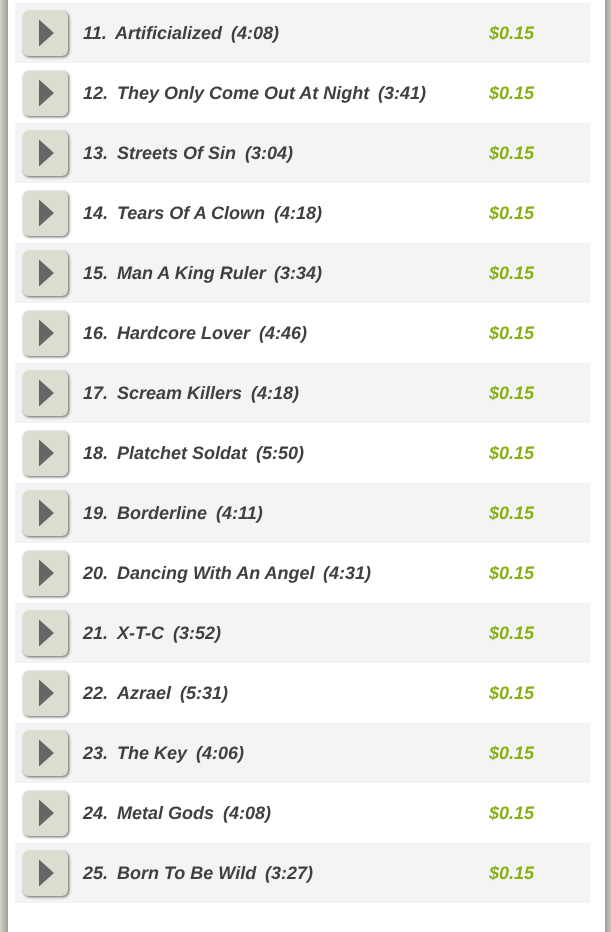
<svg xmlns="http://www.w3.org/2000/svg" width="611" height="932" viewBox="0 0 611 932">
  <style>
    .t1 { font: italic bold 18px Liberation Sans; fill: #413f3f; }
    .t2 { font: italic bold 18px Liberation Sans; fill: #88af19; }
  </style>
  <rect width="100%" height="100%" fill="#d9ddcf"/>
  <rect x="5" y="-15" width="603" height="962" fill="#888" filter="blur(5px)"/>
  <rect x="8" y="0" width="597" height="932" fill="#fff"/>
  <rect x="15" y="3" width="575" height="60" fill="#f4f4f4"/>
  <rect x="24" y="12" width="45" height="45" rx="6" fill="#5f615b" filter="blur(1.5px)"/>
  <rect x="23" y="11" width="45" height="45" rx="6" fill="#daded0"/>
  <path d="M39 46.5V19.5L54 33Z" fill="#666"/>
  <text x="83" y="39" class="t1">11.</text>
  <text x="115" y="39" class="t1">Artificialized</text>
  <text x="231" y="39" class="t1">(4:08)</text>
  <text x="489" y="39" class="t2">$0.15</text>
  <rect x="24" y="72" width="45" height="45" rx="6" fill="#5f615b" filter="blur(1.5px)"/>
  <rect x="23" y="71" width="45" height="45" rx="6" fill="#daded0"/>
  <path d="M39 106.5V79.5L54 93Z" fill="#666"/>
  <text x="83" y="99" class="t1">12.</text>
  <text x="117" y="99" class="t1">They Only Come Out At Night</text>
  <text x="378" y="99" class="t1">(3:41)</text>
  <text x="489" y="99" class="t2">$0.15</text>
  <rect x="15" y="123" width="575" height="60" fill="#f4f4f4"/>
  <rect x="24" y="132" width="45" height="45" rx="6" fill="#5f615b" filter="blur(1.5px)"/>
  <rect x="23" y="131" width="45" height="45" rx="6" fill="#daded0"/>
  <path d="M39 166.5V139.5L54 153Z" fill="#666"/>
  <text x="83" y="159" class="t1">13.</text>
  <text x="117" y="159" class="t1">Streets Of Sin</text>
  <text x="245" y="159" class="t1">(3:04)</text>
  <text x="489" y="159" class="t2">$0.15</text>
  <rect x="24" y="192" width="45" height="45" rx="6" fill="#5f615b" filter="blur(1.5px)"/>
  <rect x="23" y="191" width="45" height="45" rx="6" fill="#daded0"/>
  <path d="M39 226.5V199.5L54 213Z" fill="#666"/>
  <text x="83" y="219" class="t1">14.</text>
  <text x="117" y="219" class="t1">Tears Of A Clown</text>
  <text x="274" y="219" class="t1">(4:18)</text>
  <text x="489" y="219" class="t2">$0.15</text>
  <rect x="15" y="243" width="575" height="60" fill="#f4f4f4"/>
  <rect x="24" y="252" width="45" height="45" rx="6" fill="#5f615b" filter="blur(1.5px)"/>
  <rect x="23" y="251" width="45" height="45" rx="6" fill="#daded0"/>
  <path d="M39 286.5V259.5L54 273Z" fill="#666"/>
  <text x="83" y="279" class="t1">15.</text>
  <text x="117" y="279" class="t1">Man A King Ruler</text>
  <text x="274" y="279" class="t1">(3:34)</text>
  <text x="489" y="279" class="t2">$0.15</text>
  <rect x="24" y="312" width="45" height="45" rx="6" fill="#5f615b" filter="blur(1.5px)"/>
  <rect x="23" y="311" width="45" height="45" rx="6" fill="#daded0"/>
  <path d="M39 346.5V319.5L54 333Z" fill="#666"/>
  <text x="83" y="339" class="t1">16.</text>
  <text x="117" y="339" class="t1">Hardcore Lover</text>
  <text x="259" y="339" class="t1">(4:46)</text>
  <text x="489" y="339" class="t2">$0.15</text>
  <rect x="15" y="363" width="575" height="60" fill="#f4f4f4"/>
  <rect x="24" y="372" width="45" height="45" rx="6" fill="#5f615b" filter="blur(1.5px)"/>
  <rect x="23" y="371" width="45" height="45" rx="6" fill="#daded0"/>
  <path d="M39 406.5V379.5L54 393Z" fill="#666"/>
  <text x="83" y="399" class="t1">17.</text>
  <text x="117" y="399" class="t1">Scream Killers</text>
  <text x="251" y="399" class="t1">(4:18)</text>
  <text x="489" y="399" class="t2">$0.15</text>
  <rect x="24" y="432" width="45" height="45" rx="6" fill="#5f615b" filter="blur(1.5px)"/>
  <rect x="23" y="431" width="45" height="45" rx="6" fill="#daded0"/>
  <path d="M39 466.5V439.5L54 453Z" fill="#666"/>
  <text x="83" y="459" class="t1">18.</text>
  <text x="117" y="459" class="t1">Platchet Soldat</text>
  <text x="256" y="459" class="t1">(5:50)</text>
  <text x="489" y="459" class="t2">$0.15</text>
  <rect x="15" y="483" width="575" height="60" fill="#f4f4f4"/>
  <rect x="24" y="492" width="45" height="45" rx="6" fill="#5f615b" filter="blur(1.5px)"/>
  <rect x="23" y="491" width="45" height="45" rx="6" fill="#daded0"/>
  <path d="M39 526.5V499.5L54 513Z" fill="#666"/>
  <text x="83" y="519" class="t1">19.</text>
  <text x="117" y="519" class="t1">Borderline</text>
  <text x="216" y="519" class="t1">(4:11)</text>
  <text x="489" y="519" class="t2">$0.15</text>
  <rect x="24" y="552" width="45" height="45" rx="6" fill="#5f615b" filter="blur(1.5px)"/>
  <rect x="23" y="551" width="45" height="45" rx="6" fill="#daded0"/>
  <path d="M39 586.5V559.5L54 573Z" fill="#666"/>
  <text x="83" y="579" class="t1">20.</text>
  <text x="117" y="579" class="t1">Dancing With An Angel</text>
  <text x="323" y="579" class="t1">(4:31)</text>
  <text x="489" y="579" class="t2">$0.15</text>
  <rect x="15" y="603" width="575" height="60" fill="#f4f4f4"/>
  <rect x="24" y="612" width="45" height="45" rx="6" fill="#5f615b" filter="blur(1.5px)"/>
  <rect x="23" y="611" width="45" height="45" rx="6" fill="#daded0"/>
  <path d="M39 646.5V619.5L54 633Z" fill="#666"/>
  <text x="83" y="639" class="t1">21.</text>
  <text x="117" y="639" class="t1">X-T-C</text>
  <text x="173" y="639" class="t1">(3:52)</text>
  <text x="489" y="639" class="t2">$0.15</text>
  <rect x="24" y="672" width="45" height="45" rx="6" fill="#5f615b" filter="blur(1.5px)"/>
  <rect x="23" y="671" width="45" height="45" rx="6" fill="#daded0"/>
  <path d="M39 706.5V679.5L54 693Z" fill="#666"/>
  <text x="83" y="699" class="t1">22.</text>
  <text x="117" y="699" class="t1">Azrael</text>
  <text x="180" y="699" class="t1">(5:31)</text>
  <text x="489" y="699" class="t2">$0.15</text>
  <rect x="15" y="723" width="575" height="60" fill="#f4f4f4"/>
  <rect x="24" y="732" width="45" height="45" rx="6" fill="#5f615b" filter="blur(1.5px)"/>
  <rect x="23" y="731" width="45" height="45" rx="6" fill="#daded0"/>
  <path d="M39 766.5V739.5L54 753Z" fill="#666"/>
  <text x="83" y="759" class="t1">23.</text>
  <text x="117" y="759" class="t1">The Key</text>
  <text x="196" y="759" class="t1">(4:06)</text>
  <text x="489" y="759" class="t2">$0.15</text>
  <rect x="24" y="792" width="45" height="45" rx="6" fill="#5f615b" filter="blur(1.5px)"/>
  <rect x="23" y="791" width="45" height="45" rx="6" fill="#daded0"/>
  <path d="M39 826.5V799.5L54 813Z" fill="#666"/>
  <text x="83" y="819" class="t1">24.</text>
  <text x="117" y="819" class="t1">Metal Gods</text>
  <text x="223" y="819" class="t1">(4:08)</text>
  <text x="489" y="819" class="t2">$0.15</text>
  <rect x="15" y="843" width="575" height="60" fill="#f4f4f4"/>
  <rect x="24" y="852" width="45" height="45" rx="6" fill="#5f615b" filter="blur(1.5px)"/>
  <rect x="23" y="851" width="45" height="45" rx="6" fill="#daded0"/>
  <path d="M39 886.5V859.5L54 873Z" fill="#666"/>
  <text x="83" y="879" class="t1">25.</text>
  <text x="117" y="879" class="t1">Born To Be Wild</text>
  <text x="265" y="879" class="t1">(3:27)</text>
  <text x="489" y="879" class="t2">$0.15</text>
</svg>
